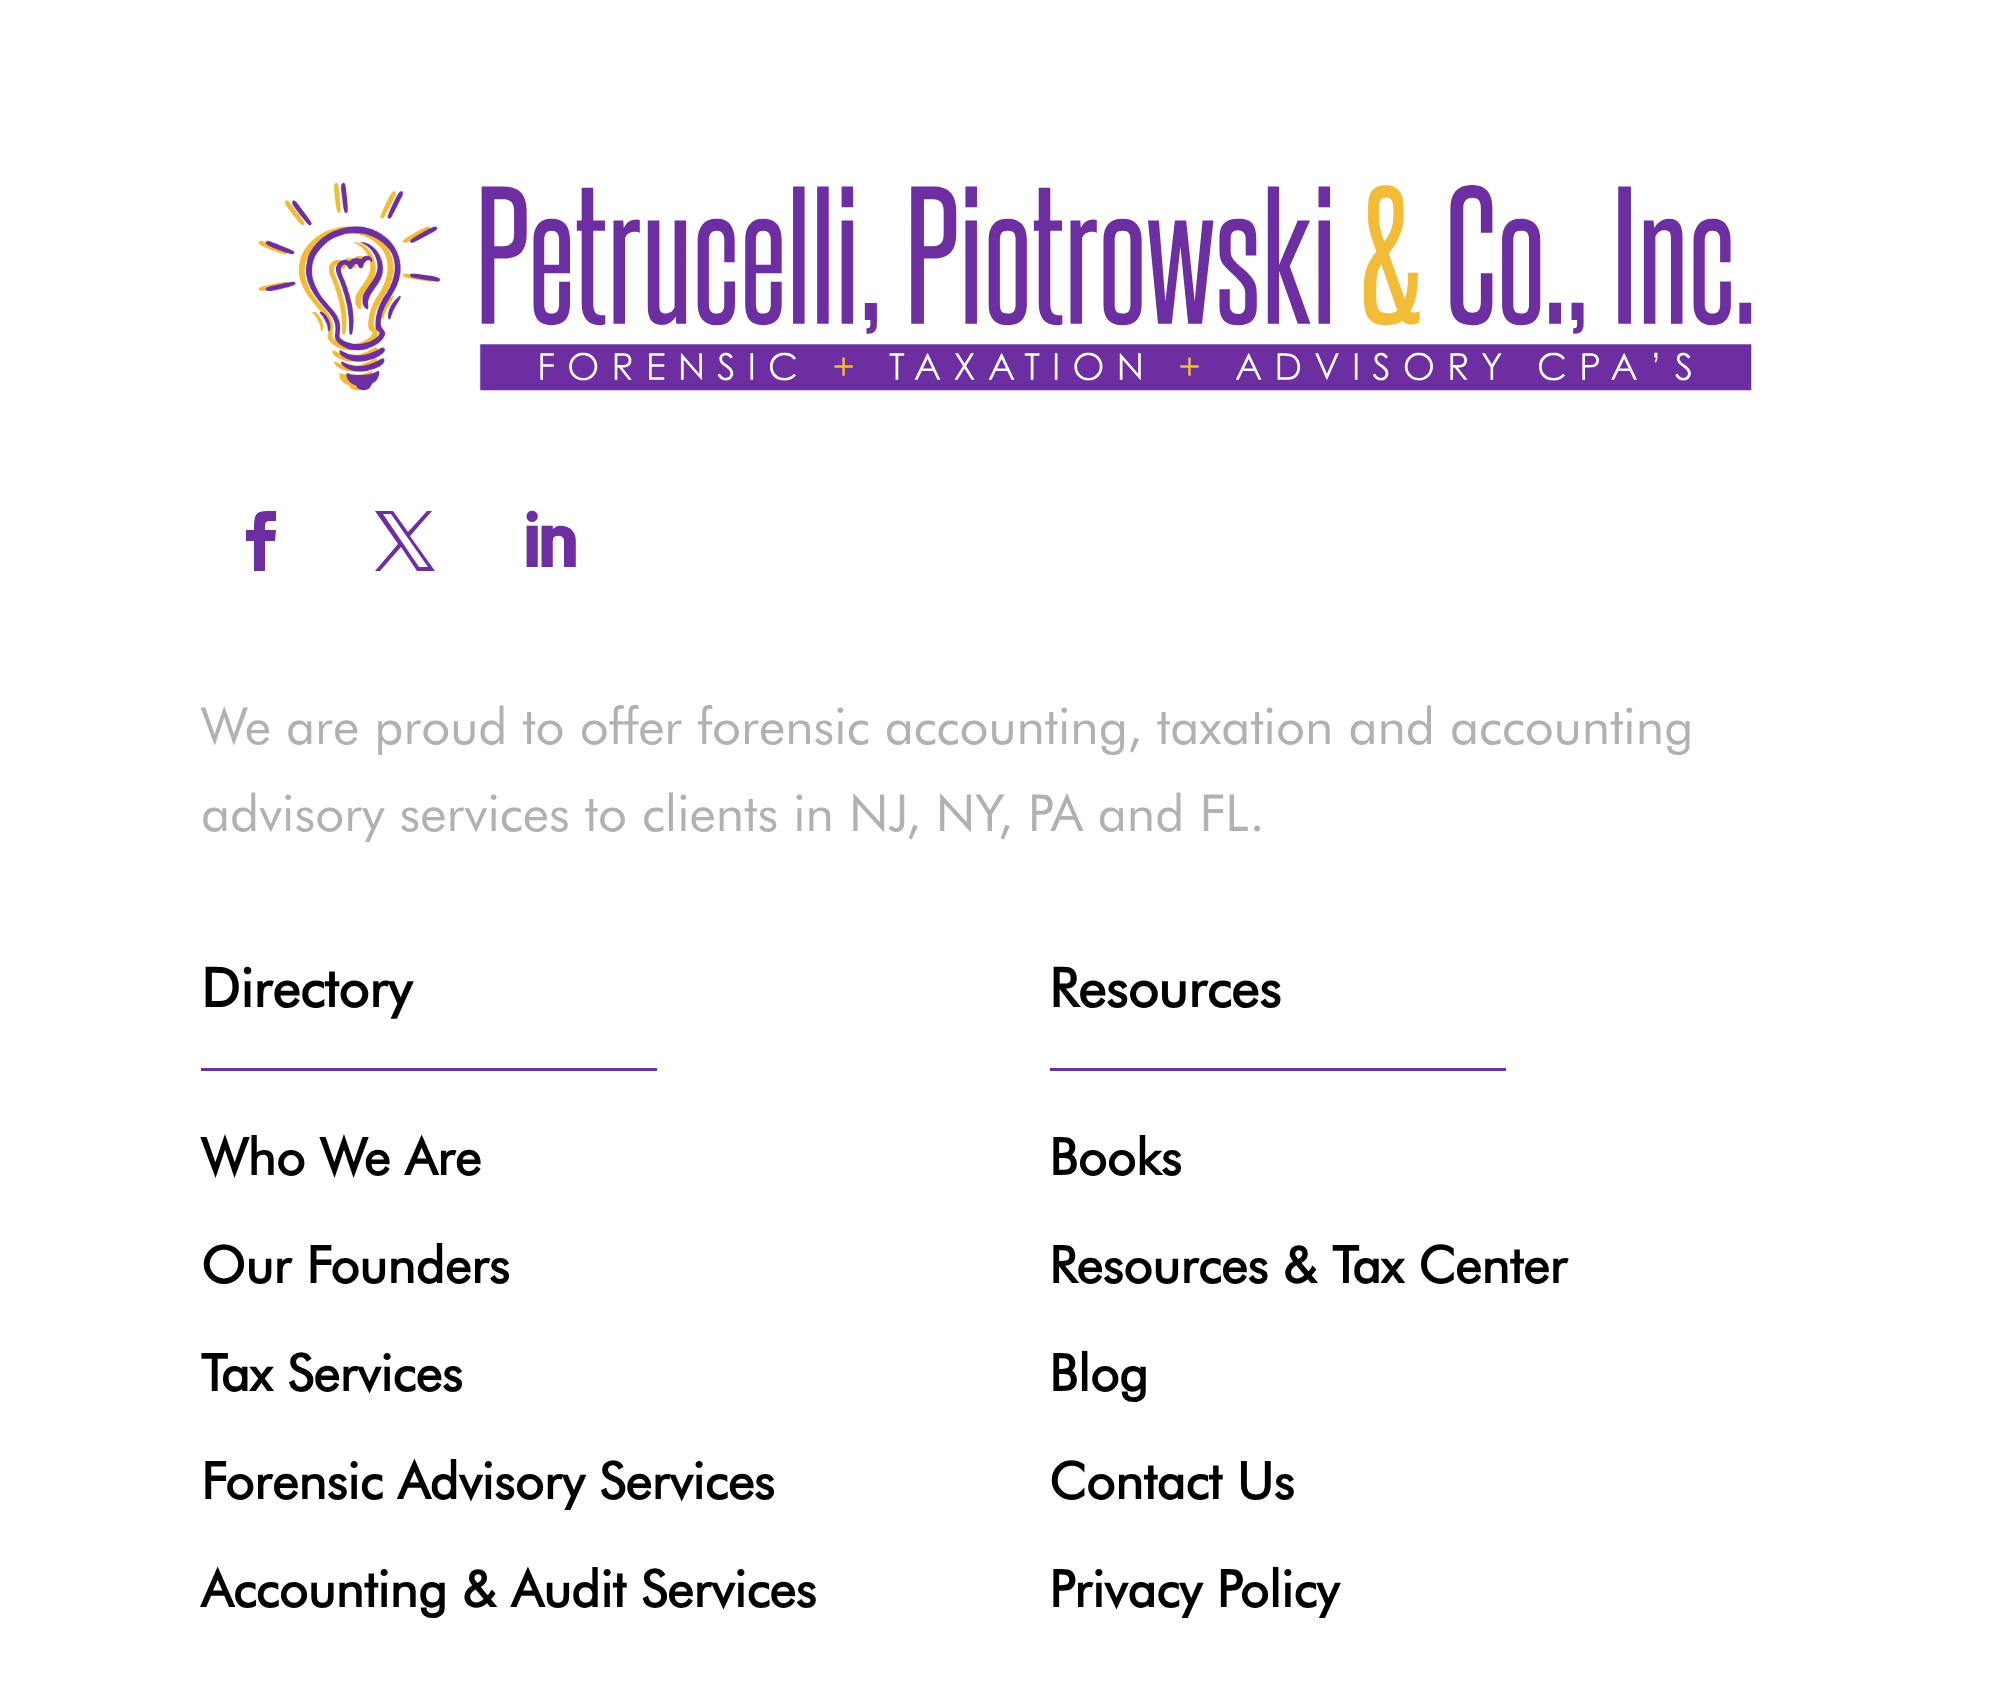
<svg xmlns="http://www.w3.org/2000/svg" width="2010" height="1684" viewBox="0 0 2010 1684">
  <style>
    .t1 { font: 51px Futura; fill: #b1b1b1; }
    .t2 { font: bold 54px Futura; fill: #000; }
    .t3 { font: bold 51px Futura; fill: #000; }
  </style>
  <rect width="100%" height="100%" fill="#fff"/>
  <image x="258" y="182" width="1494" height="209" href="images/1.png"/>
  <path d="M254 571H265V541H275L276 530H265C265 520 265 521 276 521V511C257 511 254 510 254 530H246V541H254Z" fill="#6c2ea1"/>
  <path d="M375 511L398 544L375 571H380L401 547L417 571H435L410 536L432 511H427L408 532L393 511ZM383 514H391L428 567H419Z" fill="#6c2ea1"/>
  <image x="526" y="510" width="50" height="57" href="images/2.png"/>
  <text x="201" y="744" class="t1">We are proud to offer forensic accounting, taxation and accounting</text>
  <text x="201" y="831" class="t1">advisory services to clients in NJ, NY, PA and FL.</text>
  <text x="201" y="1007" class="t2">Directory</text>
  <rect x="201" y="1068" width="456" height="3" fill="#6c2ea1"/>
  <text x="201" y="1175" class="t3">Who We Are</text>
  <text x="201" y="1283" class="t3">Our Founders</text>
  <text x="201" y="1391" class="t3">Tax Services</text>
  <text x="201" y="1499" class="t3">Forensic Advisory Services</text>
  <text x="201" y="1607" class="t3">Accounting &amp; Audit Services</text>
  <text x="1049" y="1007" class="t2">Resources</text>
  <rect x="1050" y="1068" width="456" height="3" fill="#6c2ea1"/>
  <text x="1049" y="1175" class="t3">Books</text>
  <text x="1049" y="1283" class="t3">Resources &amp; Tax Center</text>
  <text x="1049" y="1391" class="t3">Blog</text>
  <text x="1049" y="1499" class="t3">Contact Us</text>
  <text x="1049" y="1607" class="t3">Privacy Policy</text>
</svg>
